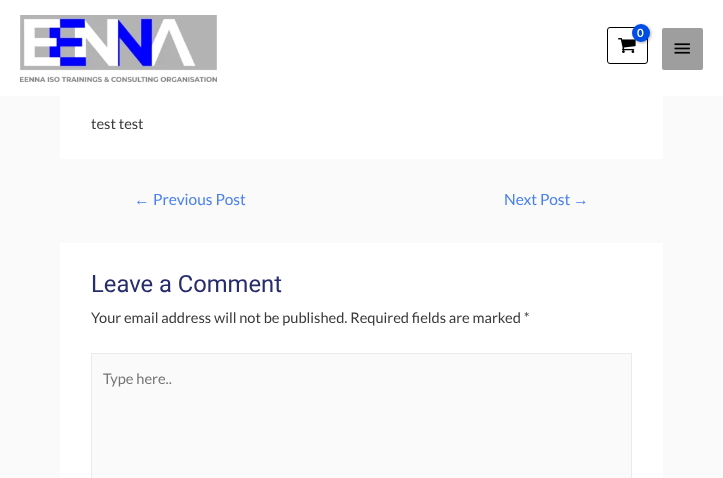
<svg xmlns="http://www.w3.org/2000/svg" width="723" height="478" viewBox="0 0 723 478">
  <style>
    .t1 { font: bold 11px Lato; fill: #fff; }
    .t2 { font: 14.6px Lato; fill: #3a3a3a; }
    .t3 { font: 15.5px Liberation Sans; fill: #4a80ec; }
    .t4 { font: 15.5px Lato; fill: #4a80ec; }
    .t5 { font: 23.75px Roboto; fill: #272c6c; }
    .t6 { font: 14.6px Lato; fill: #757575; }
  </style>
  <rect width="100%" height="100%" fill="#fafafa"/>
  <rect x="0" y="0" width="723" height="96" fill="#fff"/>
  <image x="20" y="15" width="197" height="67" href="images/1.png"/>
  <rect x="607.5" y="27.5" width="40" height="36" rx="2.5" fill="none" stroke="#000"/>
  <image x="618" y="38" width="18" height="15" href="images/2.png"/>
  <rect x="633" y="25" width="18" height="18" rx="9" fill="#0000004d" filter="blur(1.5px)"/>
  <circle cx="641" cy="33" r="9" fill="#004de5"/>
  <text x="637" y="37" class="t1">0</text>
  <rect x="662" y="28" width="41" height="42" rx="2" fill="#9e9e9e"/>
  <image x="674" y="43" width="16" height="11" href="images/3.png"/>
  <rect x="60" y="96" width="603" height="63" fill="#fff"/>
  <text x="91" y="129" class="t2">test test</text>
  <text x="134" y="205" class="t3">←</text>
  <text x="153" y="205" class="t4">Previous Post</text>
  <text x="504" y="205" class="t4">Next Post</text>
  <text x="573" y="205" class="t3">→</text>
  <rect x="60" y="243" width="603" height="235" fill="#fff"/>
  <text x="91" y="292" class="t5">Leave a Comment</text>
  <text x="91" y="323" class="t2">Your email address will not be published. Required fields are marked *</text>
  <rect x="91.5" y="353.5" width="540" height="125" fill="#fafafa" stroke="#eaeaea"/>
  <text x="103" y="384" class="t6">Type here..</text>
</svg>
